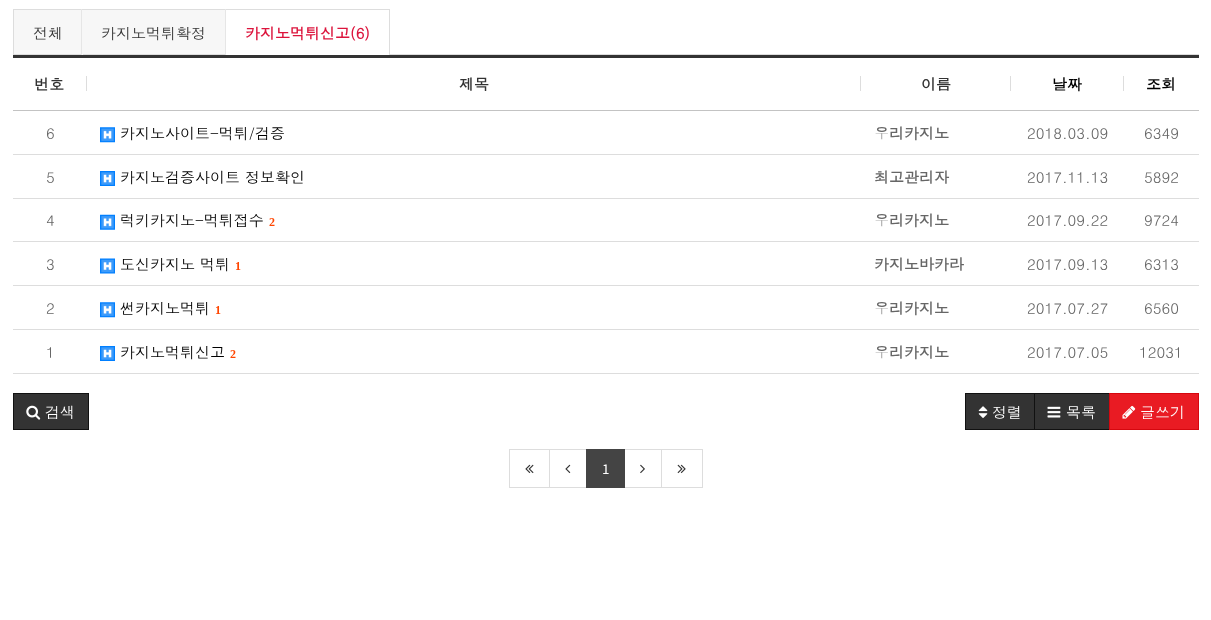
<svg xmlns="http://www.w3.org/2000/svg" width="1211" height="620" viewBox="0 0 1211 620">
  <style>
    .t1 { font: 15px Dotum; fill: #333; }
    .t2 { font: bold 15px Dotum; fill: #dc143c; }
    .t3 { font: bold 15px Dotum; fill: #333; }
    .t4 { font: bold 15px Dotum; fill: #000; }
    .t5 { font: 15px Dotum; fill: #666; }
    .t6 { font: 15px Dotum; fill: #000; }
    .t7 { font: bold 15px Dotum; fill: #666; }
    .t8 { font: bold 12px Liberation Serif; letter-spacing: -1px; fill: #ff4500; }
    .t9 { font: 15px Dotum; fill: #fff; }
    .t10 { font: 15px Source Sans Pro; fill: #fff; }
  </style>
  <rect width="100%" height="100%" fill="#fff"/>
  <rect x="390" y="54" width="809" height="1" fill="#ddd"/>
  <rect x="14" y="10" width="67" height="44" fill="#f7f7f7"/>
  <rect x="13" y="9" width="377" height="1" fill="#ddd"/>
  <rect x="13" y="9" width="1" height="46" fill="#ddd"/>
  <rect x="14" y="54" width="67" height="1" fill="#ddd"/>
  <text x="33" y="39" class="t1">전체</text>
  <rect x="82" y="10" width="143" height="45" fill="#f7f7f7"/>
  <rect x="81" y="9" width="1" height="46" fill="#e6e6e6"/>
  <rect x="83" y="54" width="142" height="1" fill="#ddd"/>
  <text x="101" y="39" class="t1">카지노먹튀확정</text>
  <rect x="389" y="9" width="1" height="46" fill="#ddd"/>
  <rect x="225" y="9" width="1" height="46" fill="#e6e6e6"/>
  <text x="245" y="39" class="t2">카지노먹튀신고(6)</text>
  <rect x="13" y="55" width="1186" height="3" fill="#333"/>
  <rect x="13" y="110" width="1186" height="1" fill="#c3c3c3"/>
  <rect x="86" y="76" width="1" height="15" fill="#ddd"/>
  <text x="34" y="90" class="t3">번호</text>
  <rect x="860" y="76" width="1" height="15" fill="#ddd"/>
  <text x="459" y="90" class="t3">제목</text>
  <rect x="1010" y="76" width="1" height="15" fill="#ddd"/>
  <text x="921" y="90" class="t3">이름</text>
  <rect x="1123" y="76" width="1" height="15" fill="#ddd"/>
  <text x="1052" y="90" class="t4">날짜</text>
  <text x="1146" y="90" class="t4">조회</text>
  <rect x="13" y="154" width="1186" height="1" fill="#ddd"/>
  <text x="46" y="139" class="t5">6</text>
  <image x="100" y="127" width="15" height="16" href="images/1.png"/>
  <text x="120" y="139" class="t6">카지노사이트-먹튀/검증</text>
  <text x="874" y="139" class="t7">우리카지노</text>
  <text x="1027" y="139" class="t5">2018.03.09</text>
  <text x="1144" y="139" class="t5">6349</text>
  <rect x="13" y="198" width="1186" height="1" fill="#ddd"/>
  <text x="46" y="183" class="t5">5</text>
  <image x="100" y="171" width="15" height="15" href="images/2.png"/>
  <text x="120" y="183" class="t6">카지노검증사이트 정보확인</text>
  <text x="874" y="183" class="t7">최고관리자</text>
  <text x="1027" y="183" class="t5">2017.11.13</text>
  <text x="1144" y="183" class="t5">5892</text>
  <rect x="13" y="241" width="1186" height="1" fill="#ddd"/>
  <text x="46" y="226" class="t5">4</text>
  <image x="100" y="214" width="15" height="16" href="images/3.png"/>
  <text x="120" y="226" class="t6">럭키카지노-먹튀접수</text>
  <text x="269" y="226" class="t8">2</text>
  <text x="874" y="226" class="t7">우리카지노</text>
  <text x="1027" y="226" class="t5">2017.09.22</text>
  <text x="1144" y="226" class="t5">9724</text>
  <rect x="13" y="285" width="1186" height="1" fill="#ddd"/>
  <text x="46" y="270" class="t5">3</text>
  <image x="100" y="258" width="15" height="16" href="images/4.png"/>
  <text x="120" y="270" class="t6">도신카지노 먹튀</text>
  <text x="235" y="270" class="t8">1</text>
  <text x="874" y="270" class="t7">카지노바카라</text>
  <text x="1027" y="270" class="t5">2017.09.13</text>
  <text x="1144" y="270" class="t5">6313</text>
  <rect x="13" y="329" width="1186" height="1" fill="#ddd"/>
  <text x="46" y="314" class="t5">2</text>
  <image x="100" y="302" width="15" height="16" href="images/5.png"/>
  <text x="120" y="314" class="t6">썬카지노먹튀</text>
  <text x="215" y="314" class="t8">1</text>
  <text x="874" y="314" class="t7">우리카지노</text>
  <text x="1027" y="314" class="t5">2017.07.27</text>
  <text x="1144" y="314" class="t5">6560</text>
  <rect x="13" y="373" width="1186" height="1" fill="#ddd"/>
  <text x="46" y="358" class="t5">1</text>
  <image x="100" y="346" width="15" height="15" href="images/2.png"/>
  <text x="120" y="358" class="t6">카지노먹튀신고</text>
  <text x="230" y="358" class="t8">2</text>
  <text x="874" y="358" class="t7">우리카지노</text>
  <text x="1027" y="358" class="t5">2017.07.05</text>
  <text x="1139" y="358" class="t5">12031</text>
  <rect x="13.5" y="393.5" width="75" height="36" fill="#333" stroke="#111"/>
  <image x="26" y="405" width="15" height="15" href="images/6.png"/>
  <text x="45" y="418" class="t9">검색</text>
  <rect x="965.5" y="393.5" width="69" height="36" fill="#333" stroke="#111"/>
  <image x="978" y="406" width="10" height="12" href="images/7.png"/>
  <text x="992" y="418" class="t9">정렬</text>
  <rect x="1034.5" y="393.5" width="75" height="36" fill="#333" stroke="#111"/>
  <image x="1047" y="406" width="14" height="12" href="images/8.png"/>
  <text x="1066" y="418" class="t9">목록</text>
  <rect x="1109.5" y="393.5" width="89" height="36" fill="#e91b23" stroke="#d5070f"/>
  <image x="1122" y="405" width="14" height="14" href="images/9.png"/>
  <text x="1140" y="418" class="t9">글쓰기</text>
  <rect x="509.5" y="449.5" width="40" height="38" fill="none" stroke="#ddd"/>
  <image x="525" y="464" width="9" height="10" href="images/10.png"/>
  <rect x="549.5" y="449.5" width="38" height="38" fill="none" stroke="#ddd"/>
  <image x="565" y="464" width="6" height="10" href="images/11.png"/>
  <rect x="624.5" y="449.5" width="38" height="38" fill="none" stroke="#ddd"/>
  <rect x="586" y="449" width="39" height="39" fill="#444"/>
  <text x="602" y="474" class="t10">1</text>
  <image x="640" y="464" width="5" height="10" href="images/12.png"/>
  <rect x="662" y="450" width="1" height="37" fill="#fff"/>
  <rect x="661.5" y="449.5" width="41" height="38" fill="none" stroke="#ddd"/>
  <image x="677" y="464" width="9" height="10" href="images/13.png"/>
</svg>
